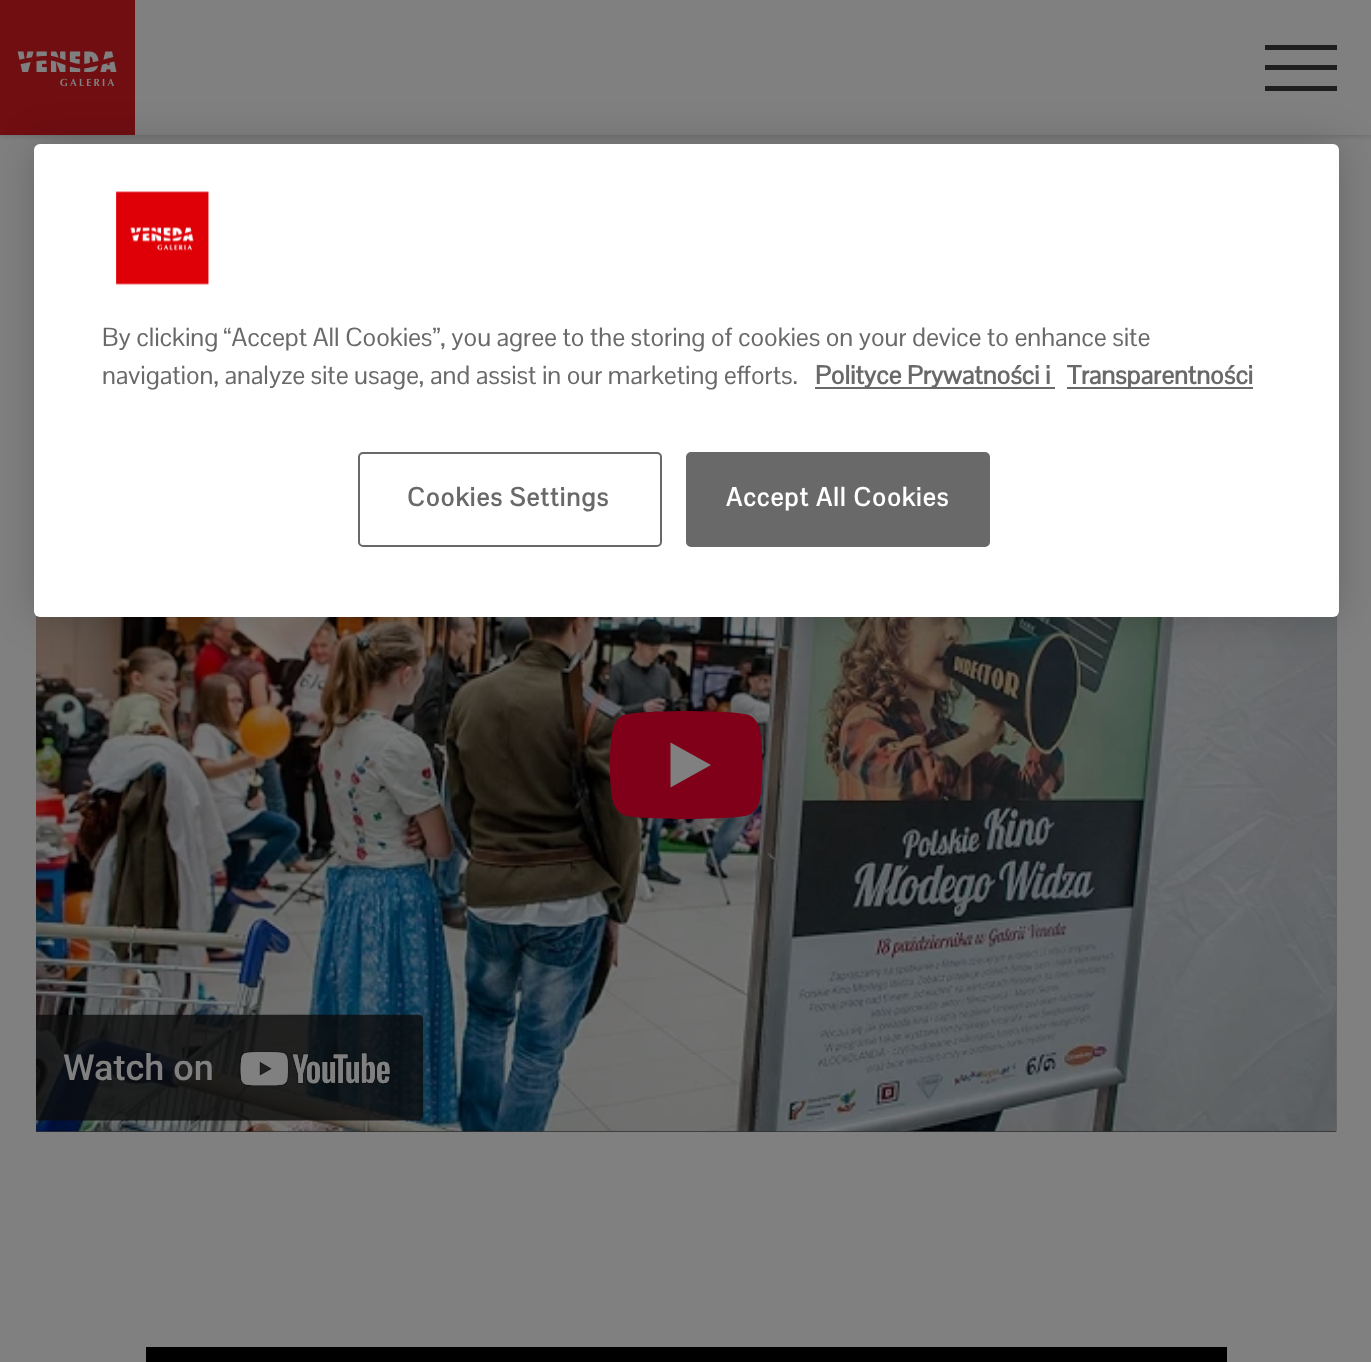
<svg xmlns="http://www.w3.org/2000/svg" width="1371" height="1362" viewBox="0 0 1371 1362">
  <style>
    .t1 { font: 25.6px Pontano Sans; fill: #696969; }
    .t2 { font: bold 25.6px Pontano Sans; fill: #696969; }
    .t3 { font: bold 25.6px Pontano Sans; letter-spacing: 1.25px; fill: #696969; }
    .t4 { font: bold 25.6px Pontano Sans; letter-spacing: 1.25px; fill: #fff; }
  </style>
  <defs>
    <clipPath id="clip1"><rect x="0" y="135" width="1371" height="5"/></clipPath>
  </defs>
  <rect width="100%" height="100%" fill="#808080"/>
  <g clip-path="url(#clip1)">
    <rect x="0" y="-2" width="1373" height="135" fill="#00000054" filter="blur(4.5px)"/>
  </g>
  <image x="0" y="0" width="135" height="135" href="images/1.png"/>
  <rect x="1265" y="45" width="72" height="5" fill="#1e1e1e"/>
  <rect x="1265" y="65" width="72" height="5" fill="#1e1e1e"/>
  <rect x="1265" y="86" width="72" height="5" fill="#1e1e1e"/>
  <image x="36" y="615" width="1301" height="517" href="images/3.png"/>
  <image x="36" y="615" width="1301" height="517" href="images/4.png"/>
  <rect x="34" y="144" width="1305" height="473" rx="6" fill="#00000033" filter="blur(20px)"/>
  <rect x="34" y="144" width="1305" height="473" rx="6" fill="#fff"/>
  <image x="116" y="191" width="94" height="95" href="images/2.png"/>
  <text x="102" y="346" class="t1">By clicking “Accept All Cookies”, you agree to the storing of cookies on your device to enhance site</text>
  <text x="102" y="384" class="t1">navigation, analyze site usage, and assist in our marketing efforts.</text>
  <rect x="815" y="387" width="240" height="2" fill="#696969"/>
  <text x="815" y="384" class="t2">Polityce Prywatności i</text>
  <rect x="1067" y="387" width="186" height="2" fill="#696969"/>
  <text x="1067" y="384" class="t2">Transparentności</text>
  <rect x="359" y="453" width="302" height="93" rx="4" fill="none" stroke="#696969" stroke-width="2"/>
  <text x="407" y="506" class="t3">Cookies Settings</text>
  <rect x="687" y="453" width="302" height="93" rx="4" fill="#696969" stroke="#696969" stroke-width="2"/>
  <text x="726" y="506" class="t4">Accept All Cookies</text>
  <rect x="146" y="1347" width="1081" height="15" fill="#000"/>
</svg>
